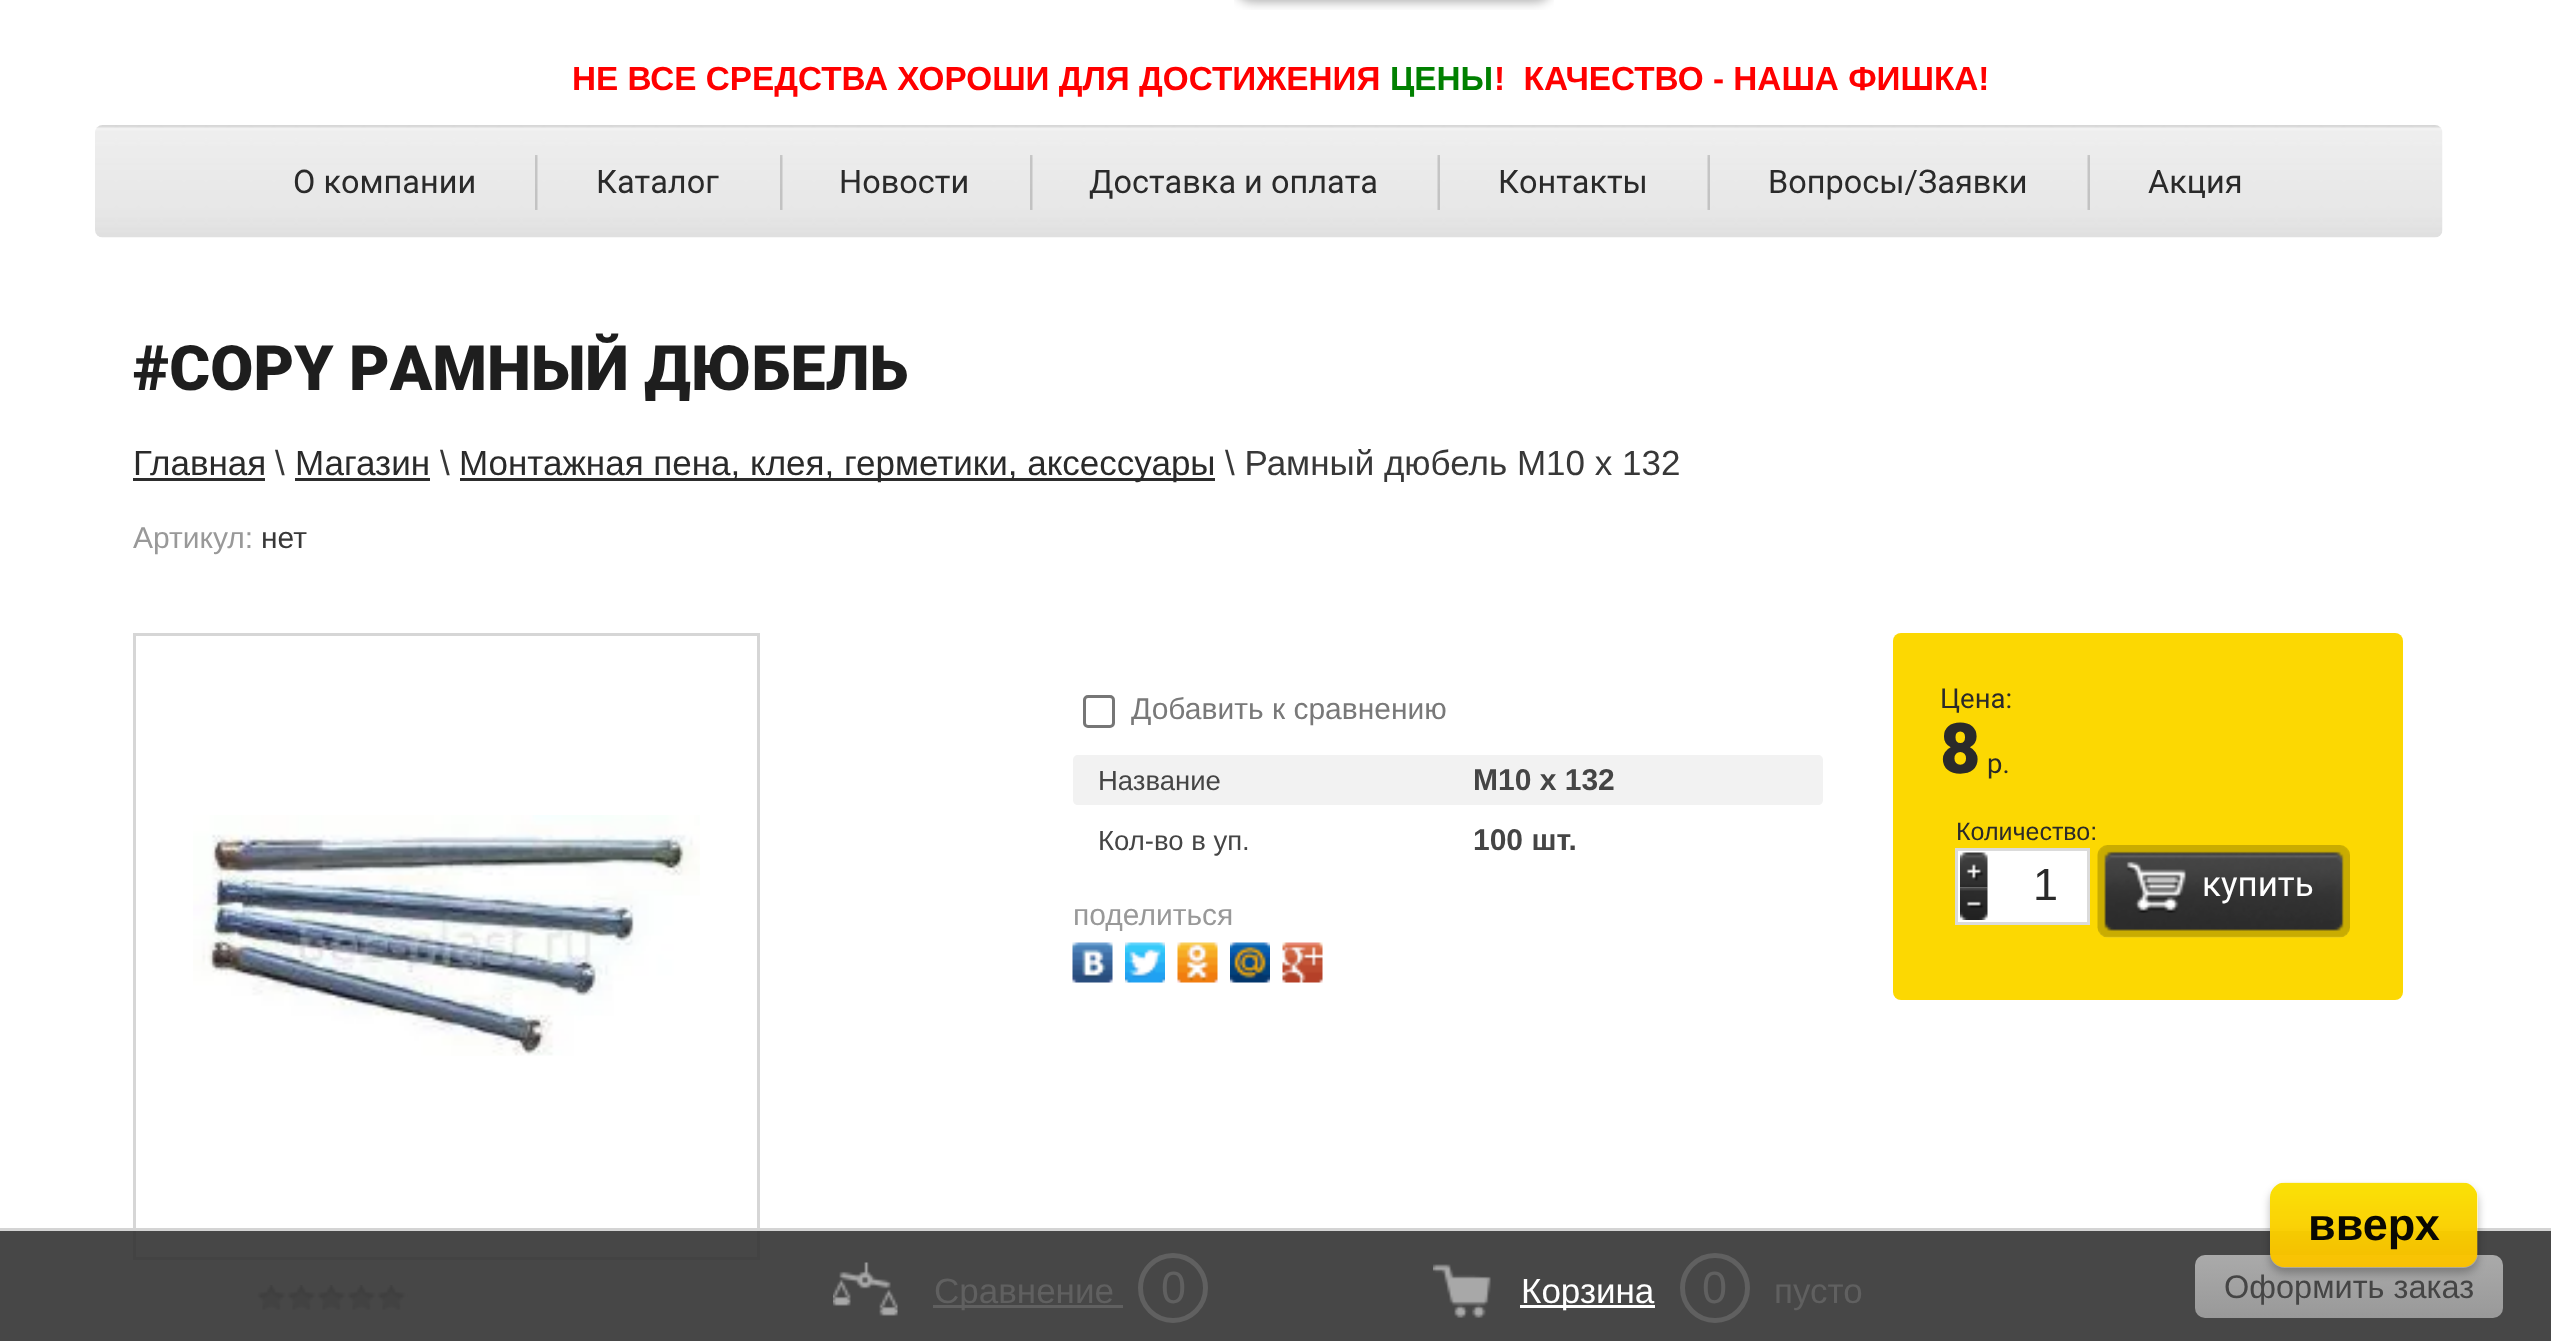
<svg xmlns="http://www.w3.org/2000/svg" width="2551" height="1341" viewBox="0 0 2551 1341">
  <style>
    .t1 { font: bold 33.3px Liberation Sans; fill: #f00; }
    .t2 { font: bold 33.3px Liberation Sans; fill: #008000; }
    .t3 { font: 32.5px roboto; fill: #2a2a2a; }
    .t4 { font: 900 62.5px Roboto; fill: #1e1e1e; }
    .t5 { font: 35px Liberation Sans; fill: #2a2a2a; }
    .t6 { font: 35px Liberation Sans; fill: #383838; }
    .t7 { font: 30px Liberation Sans; fill: #999; }
    .t8 { font: 30px Liberation Sans; fill: #383838; }
    .t9 { font: 30px Liberation Sans; fill: #797979; }
    .t10 { font: 27.5px Liberation Sans; fill: #454545; }
    .t11 { font: bold 30px Liberation Sans; fill: #454545; }
    .t12 { font: 27.5px roboto; fill: #2a2a2a; }
    .t13 { font: 900 70px Roboto; fill: #2a2a2a; }
    .t14 { font: 25px Liberation Sans; fill: #2a2a2a; }
    .t15 { font: 45px Liberation Sans; fill: #2a2a2a; }
    .t16 { font: 35px roboto; fill: #fff; }
    .t17 { font: 35px Liberation Sans; fill: #606060; }
    .t18 { font: 45px Liberation Sans; fill: #606060; }
    .t19 { font: 35px Liberation Sans; fill: #fff; }
    .t20 { font: 32.5px Liberation Sans; fill: #454545; }
    .t21 { font: bold 45px Liberation Sans; fill: #090803; }
  </style>
  <defs>
    <linearGradient id="g1" gradientUnits="userSpaceOnUse" x1="2349" y1="1255" x2="2349" y2="1318"><stop offset="0" stop-color="#aaa"/><stop offset="1" stop-color="#999"/></linearGradient>
    <clipPath id="clip1"><path d="M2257 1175H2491V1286H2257ZM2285 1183H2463C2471.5 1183 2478 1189.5 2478 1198V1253C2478 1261.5 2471.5 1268 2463 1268H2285C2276.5 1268 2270 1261.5 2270 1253V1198C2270 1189.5 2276.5 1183 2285 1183Z" clip-rule="evenodd"/></clipPath>
  </defs>
  <rect width="100%" height="100%" fill="#fff"/>
  <image x="1234" y="0" width="320" height="10" href="images/1.png"/>
  <text x="572" y="90" class="t1">НЕ ВСЕ СРЕДСТВА ХОРОШИ ДЛЯ ДОСТИЖЕНИЯ</text>
  <text x="1390" y="90" class="t2">ЦЕНЫ</text>
  <text x="1494" y="90" class="t1" xml:space="preserve">!  КАЧЕСТВО - НАША ФИШКА!</text>
  <image x="95" y="125" width="2348" height="113" href="images/2.png"/>
  <text x="293" y="193" class="t3">О компании</text>
  <image x="535" y="155" width="3" height="55" href="images/3.png"/>
  <text x="596" y="193" class="t3">Каталог</text>
  <image x="780" y="155" width="3" height="55" href="images/3.png"/>
  <text x="839" y="193" class="t3">Новости</text>
  <image x="1030" y="155" width="3" height="55" href="images/3.png"/>
  <text x="1089" y="193" class="t3">Доставка и оплата</text>
  <image x="1437" y="155" width="3" height="55" href="images/4.png"/>
  <text x="1498" y="193" class="t3">Контакты</text>
  <image x="1707" y="155" width="3" height="55" href="images/4.png"/>
  <text x="1768" y="193" class="t3">Вопросы/Заявки</text>
  <image x="2087" y="155" width="3" height="55" href="images/4.png"/>
  <text x="2148" y="193" class="t3">Акция</text>
  <text x="133" y="390" class="t4">#COPY РАМНЫЙ ДЮБЕЛЬ</text>
  <text x="133" y="475" class="t5">Главная</text>
  <rect x="133" y="478" width="132" height="3" fill="#2d2d2d"/>
  <text x="275" y="475" class="t6">\</text>
  <text x="295" y="475" class="t5">Магазин</text>
  <rect x="295" y="478" width="135" height="3" fill="#2d2d2d"/>
  <text x="440" y="475" class="t6">\</text>
  <rect x="460" y="478" width="755" height="3" fill="#2d2d2d"/>
  <text x="459" y="475" class="t5">Монтажная пена, клея, герметики, аксессуары</text>
  <text x="1225" y="475" class="t6">\ Рамный дюбель М10 х 132</text>
  <text x="133" y="548" class="t7">Артикул:</text>
  <text x="261" y="548" class="t8">нет</text>
  <rect x="134.5" y="634.5" width="624" height="624" fill="none" stroke="#d6d6d6" stroke-width="3"/>
  <image x="193" y="815" width="507" height="241" href="images/5.png"/>
  <image x="257" y="1285" width="151" height="25" href="images/6.png"/>
  <rect x="1084.5" y="696.5" width="29" height="30" rx="3.5" fill="none" stroke="#767676" stroke-width="3"/>
  <text x="1131" y="719" class="t9">Добавить к сравнению</text>
  <path d="M1078 755H1448V805H1078C1075 805 1073 803 1073 800V760C1073 757 1075 755 1078 755Z" fill="#f2f2f2"/>
  <text x="1098" y="790" class="t10">Название</text>
  <path d="M1448 755H1818C1821 755 1823 757 1823 760V800C1823 803 1821 805 1818 805H1448Z" fill="#f2f2f2"/>
  <text x="1473" y="790" class="t11">М10 х 132</text>
  <text x="1098" y="850" class="t10">Кол-во в уп.</text>
  <text x="1473" y="850" class="t11">100 шт.</text>
  <text x="1073" y="925" class="t7">поделиться</text>
  <image x="1072" y="942" width="41" height="41" href="images/7.png"/>
  <image x="1125" y="942" width="40" height="41" href="images/8.png"/>
  <image x="1177" y="942" width="41" height="41" href="images/9.png"/>
  <image x="1230" y="942" width="40" height="41" href="images/10.png"/>
  <image x="1282" y="942" width="41" height="41" href="images/11.png"/>
  <rect x="1893" y="633" width="510" height="367" rx="8" fill="#fcd802"/>
  <text x="1940" y="708" class="t12">Цена:</text>
  <text x="1940" y="773" class="t13">8</text>
  <text x="1987" y="773" class="t12">р.</text>
  <text x="1956" y="840" class="t14">Количество:</text>
  <rect x="1956.5" y="849.5" width="132" height="74" fill="#fff" stroke="#dbdbdb" stroke-width="3"/>
  <image x="1960" y="887" width="28" height="33" href="images/13.png"/>
  <image x="1960" y="852" width="28" height="36" href="images/12.png"/>
  <text x="2033" y="900" class="t15">1</text>
  <image x="2097" y="845" width="253" height="93" href="images/14.png"/>
  <image x="2126" y="861" width="60" height="52" href="images/15.png"/>
  <text x="2202" y="896" class="t16">купить</text>
  <rect x="0" y="1231" width="2551" height="110" fill="#333333e6"/>
  <rect x="0" y="1228" width="2551" height="3" fill="#d4d4d4"/>
  <image x="833" y="1262" width="65" height="54" href="images/16.png"/>
  <rect x="933" y="1305" width="190" height="3" fill="#606060"/>
  <text x="934" y="1303" class="t17">Сравнение</text>
  <circle cx="1173" cy="1288" r="32.5" fill="none" stroke="#606060" stroke-width="5"/>
  <text x="1161" y="1303" class="t18">0</text>
  <image x="1433" y="1264" width="58" height="54" href="images/17.png"/>
  <rect x="1520" y="1305" width="135" height="3" fill="#fff"/>
  <text x="1521" y="1303" class="t19">Корзина</text>
  <circle cx="1715" cy="1288" r="32.5" fill="none" stroke="#606060" stroke-width="5"/>
  <text x="1702" y="1303" class="t18">0</text>
  <text x="1774" y="1303" class="t17">пусто</text>
  <rect x="2195" y="1255" width="308" height="63" rx="10" fill="url(#g1)"/>
  <text x="2224" y="1298" class="t20">Оформить заказ</text>
  <g clip-path="url(#clip1)">
    <rect x="2270" y="1188" width="208" height="85" rx="15" fill="#00000042" filter="blur(4px)"/>
  </g>
  <image x="2270" y="1182" width="208" height="86" href="images/18.png"/>
  <text x="2308" y="1240" class="t21">вверх</text>
</svg>
